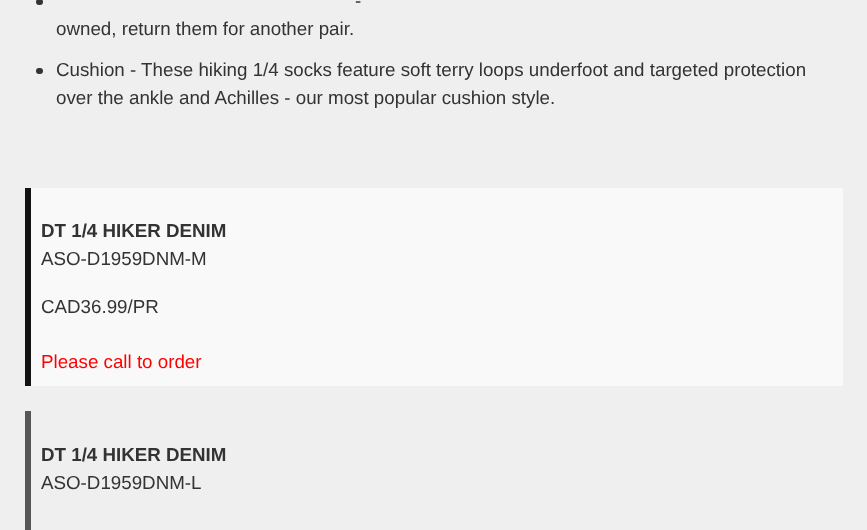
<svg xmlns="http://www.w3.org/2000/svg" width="867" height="530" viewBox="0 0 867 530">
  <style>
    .t1 { font: 18.75px Liberation Sans; fill: #333; }
    .t2 { font: bold 18.75px Liberation Sans; fill: #333; }
    .t3 { font: 18.75px Liberation Sans; fill: #f00; }
  </style>
  <rect width="100%" height="100%" fill="#efefef"/>
  <rect x="36" y="-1" width="7" height="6" rx="3" fill="#333"/>
  <text x="355" y="7" class="t1">-</text>
  <text x="56" y="35" class="t1">owned, return them for another pair.</text>
  <rect x="36" y="68" width="7" height="6" rx="3" fill="#333"/>
  <text x="56" y="76" class="t1">Cushion - These hiking 1/4 socks feature soft terry loops underfoot and targeted protection</text>
  <text x="56" y="104" class="t1">over the ankle and Achilles - our most popular cushion style.</text>
  <rect x="25" y="188" width="6" height="198" fill="#121212"/>
  <rect x="31" y="188" width="812" height="198" fill="#f9f9f9"/>
  <text x="41" y="237" class="t2">DT 1/4 HIKER DENIM</text>
  <text x="41" y="265" class="t1">ASO-D1959DNM-M</text>
  <text x="41" y="313" class="t1">CAD36.99/PR</text>
  <text x="41" y="368" class="t3">Please call to order</text>
  <rect x="25" y="411" width="6" height="119" fill="#565656"/>
  <text x="41" y="461" class="t2">DT 1/4 HIKER DENIM</text>
  <text x="41" y="489" class="t1">ASO-D1959DNM-L</text>
</svg>
